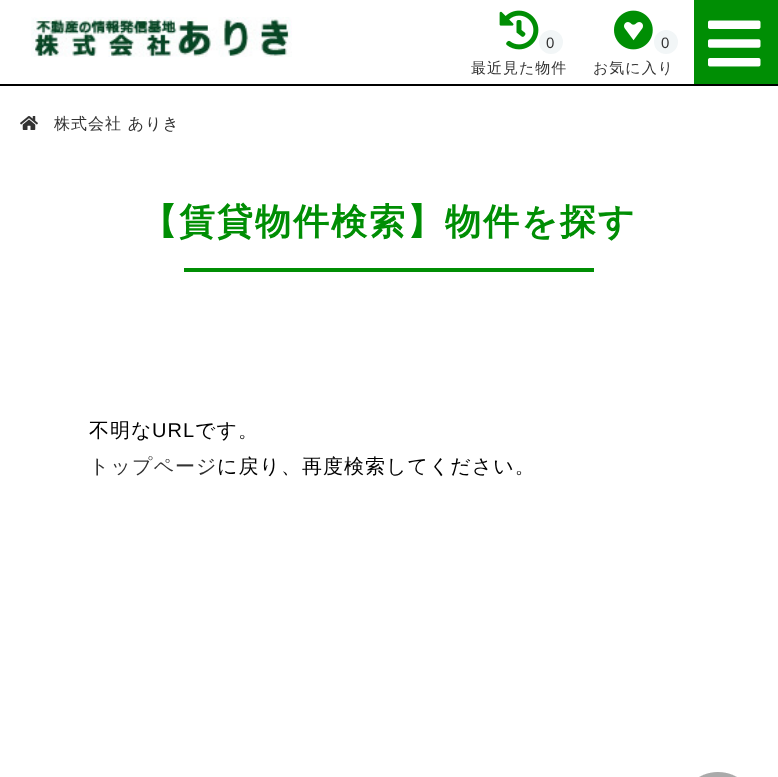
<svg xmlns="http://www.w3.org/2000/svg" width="778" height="777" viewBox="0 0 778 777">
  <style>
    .t1 { font: 15px Liberation Sans; letter-spacing: 1px; fill: #333; }
    .t2 { font: 500 15px WenQuanYi Zen Hei; letter-spacing: 1px; fill: #333; }
    .t3 { font: 500 16px WenQuanYi Zen Hei; letter-spacing: 1px; fill: #333; }
    .t4 { font: bold 36px WenQuanYi Zen Hei; letter-spacing: 2px; fill: #008e04; }
    .t5 { font: 500 20px WenQuanYi Zen Hei; letter-spacing: 1px; fill: #000; }
    .t6 { font: 20px Liberation Sans; letter-spacing: 1px; fill: #000; }
    .t7 { font: 500 20px WenQuanYi Zen Hei; letter-spacing: 1px; fill: #333; }
  </style>
  <rect width="100%" height="100%" fill="#fff"/>
  <rect x="0" y="84" width="778" height="2" fill="#000"/>
  <image x="31" y="17" width="261" height="40" href="images/1.png"/>
  <image x="499" y="10" width="40" height="40" href="images/2.png"/>
  <circle cx="551" cy="42" r="12" fill="#f2f6f7"/>
  <text x="546" y="48" class="t1">0</text>
  <text x="471" y="73" class="t2">最近見た物件</text>
  <image x="614" y="10" width="39" height="40" href="images/3.png"/>
  <circle cx="666" cy="42" r="12" fill="#f2f6f7"/>
  <text x="661" y="48" class="t1">0</text>
  <text x="593" y="73" class="t2">お気に入り</text>
  <rect x="694" y="0" width="84" height="84" fill="#008e04"/>
  <image x="708" y="20" width="53" height="47" href="images/4.png"/>
  <image x="20" y="116" width="18" height="14" href="images/5.png"/>
  <text x="54" y="129" class="t3">株式会社 ありき</text>
  <text x="141" y="234" class="t4">【賃貸物件検索】物件を探す</text>
  <rect x="184" y="268" width="410" height="4" fill="#008e04"/>
  <text x="89" y="437" class="t5">不明な</text>
  <text x="152" y="437" class="t6">URL</text>
  <text x="195" y="437" class="t5">です。</text>
  <text x="89" y="473" class="t7">トップページ</text>
  <text x="217" y="473" class="t5">に戻り、再度検索してください。</text>
  <image x="699" y="772" width="38" height="5" href="images/6.png"/>
</svg>
